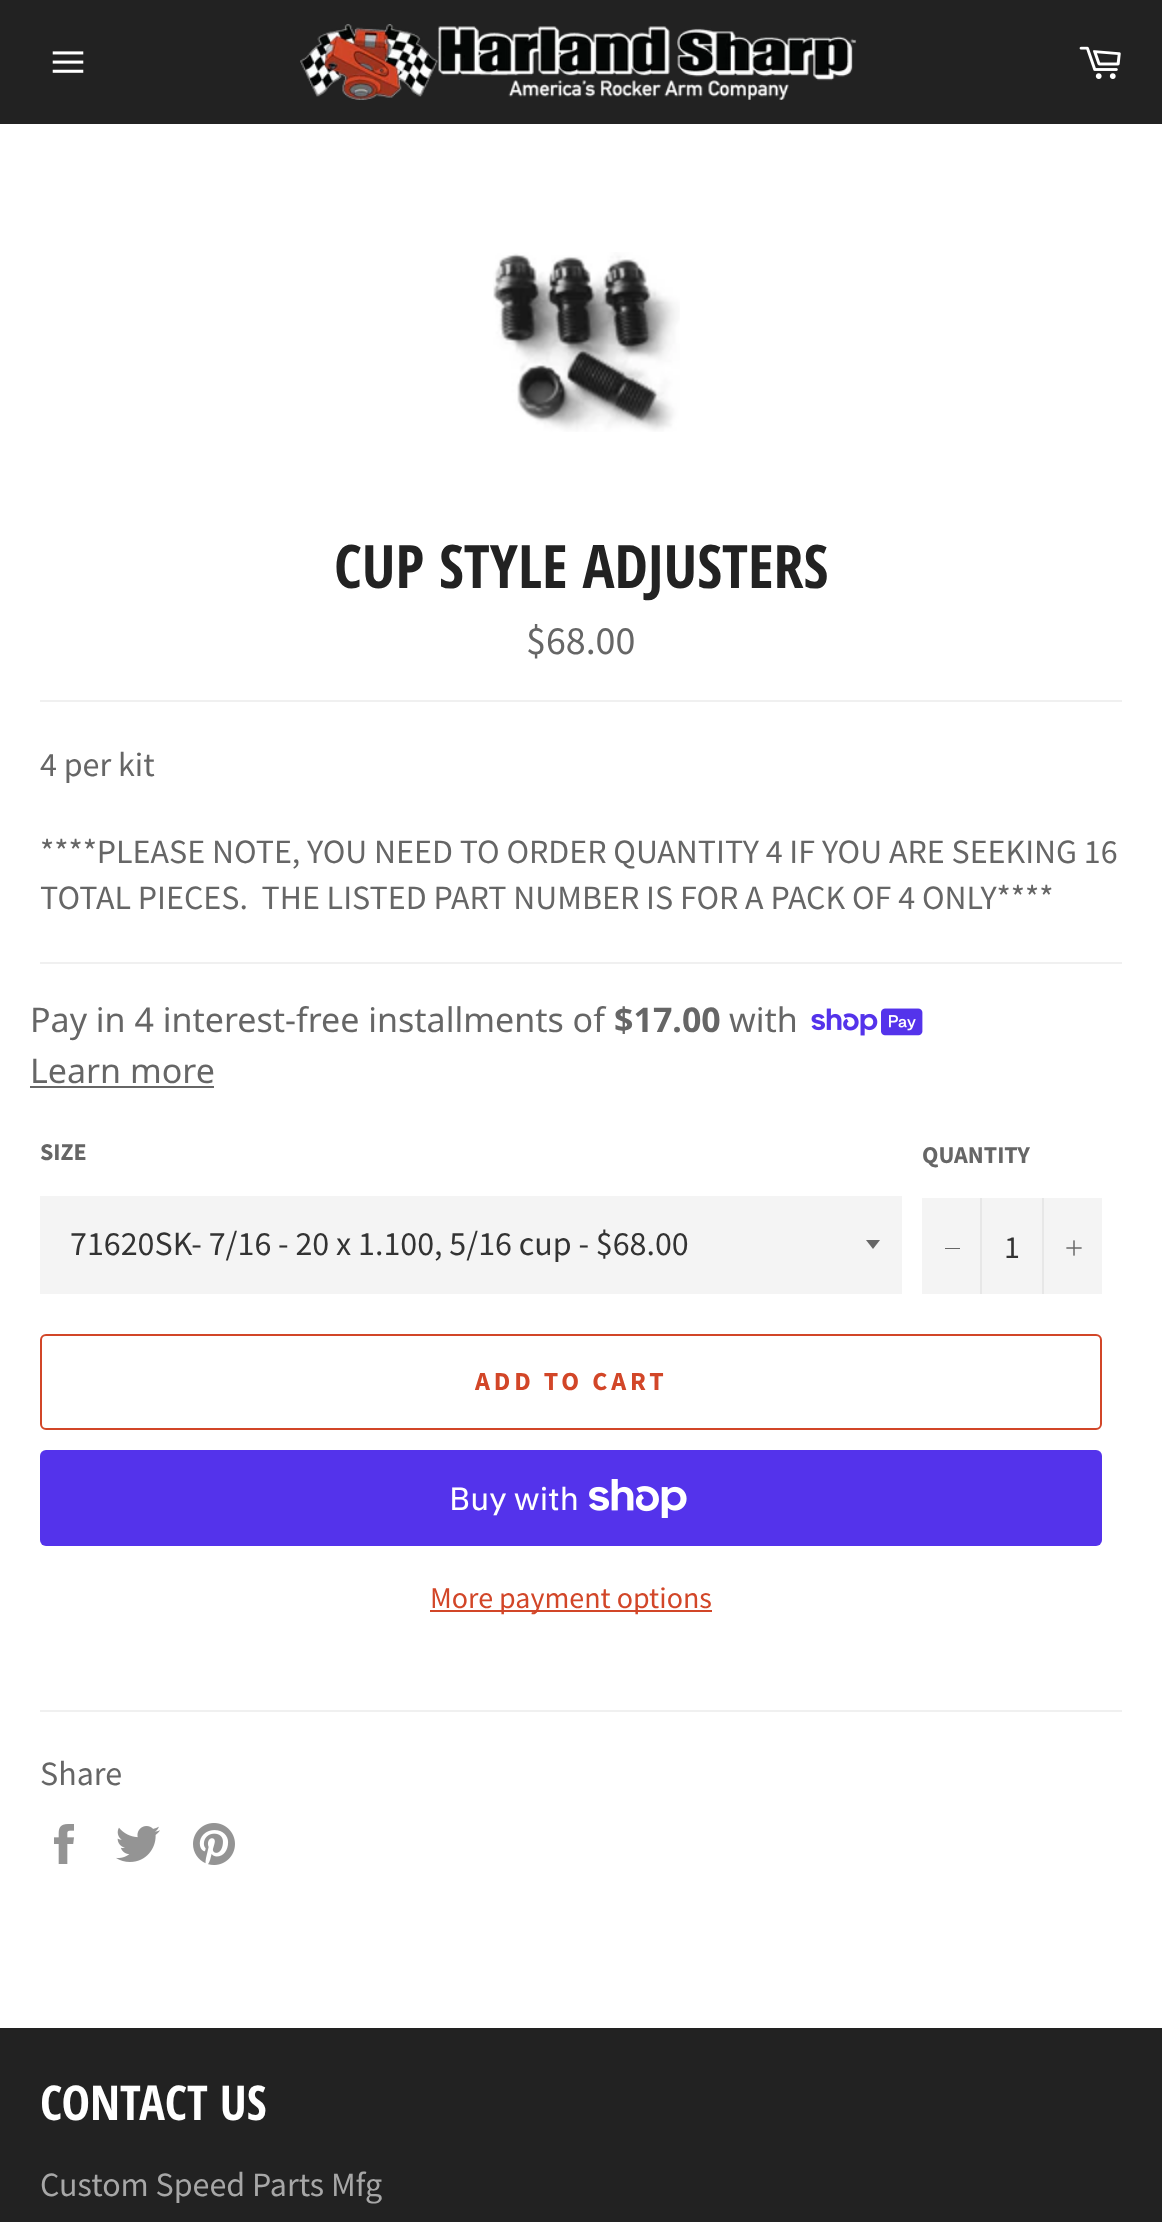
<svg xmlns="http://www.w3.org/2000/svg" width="1162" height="2222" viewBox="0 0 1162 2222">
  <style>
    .t1 { font: bold 60px Open Sans Condensed; fill: #222; }
    .t2 { font: 40px Source Sans Pro; fill: #666; }
    .t3 { font: 34px Source Sans Pro; fill: #666; }
    .t4 { font: 34px Noto Sans; fill: #666; }
    .t5 { font: bold 34px Noto Sans; fill: #666; }
    .t6 { font: bold 24px Source Sans Pro; fill: #666; }
    .t7 { font: 34px Source Sans Pro; fill: #333; }
    .t8 { font: 32px Source Sans Pro; fill: #333; }
    .t9 { font: bold 26px Source Sans Pro; letter-spacing: 3.9px; fill: #d24628; }
    .t10 { font: 32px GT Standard; fill: #fff; }
    .t11 { font: 30px Source Sans Pro; fill: #d24628; }
    .t12 { font: bold 48px Open Sans Condensed; fill: #fff; }
    .t13 { font: 34px Source Sans Pro; fill: #a7a7a7; }
  </style>
  <rect width="100%" height="100%" fill="#222"/>
  <image x="52" y="51" width="32" height="22" href="images/1.png"/>
  <image x="300" y="24" width="557" height="76" href="images/2.png"/>
  <image x="1079" y="46" width="42" height="33" href="images/3.png"/>
  <rect x="0" y="124" width="1162" height="1904" fill="#fff"/>
  <image x="493" y="252" width="187" height="180" href="images/4.png"/>
  <text x="334" y="588" class="t1">CUP STYLE ADJUSTERS</text>
  <text x="526" y="654" class="t2">$68.00</text>
  <rect x="40" y="700" width="1082" height="2" fill="#f0f0f0"/>
  <text x="40" y="776" class="t3">4 per kit</text>
  <text x="40" y="863" class="t3">****PLEASE NOTE, YOU NEED TO ORDER QUANTITY 4 IF YOU ARE SEEKING 16</text>
  <text x="40" y="909" class="t3" xml:space="preserve">TOTAL PIECES.  THE LISTED PART NUMBER IS FOR A PACK OF 4 ONLY****</text>
  <rect x="40" y="962" width="1082" height="2" fill="#f0f0f0"/>
  <text x="30" y="1032" class="t4">Pay in 4 interest-free installments of</text>
  <text x="614" y="1032" class="t5">$17.00</text>
  <text x="729" y="1032" class="t4">with</text>
  <image x="811" y="1008" width="112" height="28" href="images/5.png"/>
  <text x="30" y="1083" class="t4">Learn more</text>
  <rect x="30" y="1086" width="184" height="2" fill="#666"/>
  <text x="40" y="1160" class="t6">SIZE</text>
  <rect x="40" y="1196" width="862" height="98" fill="#f4f4f4"/>
  <path d="M866 1240L873 1249L880 1240Z" fill="#666"/>
  <text x="70" y="1255" class="t7">71620SK- 7/16 - 20 x 1.100, 5/16 cup - $68.00</text>
  <text x="922" y="1163" class="t6">QUANTITY</text>
  <rect x="922" y="1198" width="180" height="96" fill="#f4f4f4"/>
  <rect x="980" y="1198" width="2" height="96" fill="#e7e7e7"/>
  <rect x="945" y="1248" width="15" height="1" fill="#666"/>
  <text x="1004" y="1258" class="t8">1</text>
  <rect x="1042" y="1198" width="2" height="96" fill="#e7e7e7"/>
  <image x="1066" y="1240" width="16" height="16" href="images/6.png"/>
  <rect x="41" y="1335" width="1060" height="94" rx="5" fill="none" stroke="#d24628" stroke-width="2"/>
  <text x="475" y="1390" class="t9">ADD TO CART</text>
  <rect x="40" y="1450" width="1062" height="96" rx="6" fill="#5433eb"/>
  <text x="449" y="1510" class="t10">Buy with</text>
  <image x="589" y="1479" width="98" height="39" href="images/7.png"/>
  <rect x="430" y="1610" width="282" height="2" fill="#d24628"/>
  <text x="430" y="1608" class="t11">More payment options</text>
  <rect x="40" y="1710" width="1082" height="2" fill="#f0f0f0"/>
  <text x="40" y="1785" class="t3">Share</text>
  <image x="54" y="1824" width="20" height="40" href="images/8.png"/>
  <image x="116" y="1826" width="44" height="36" href="images/9.png"/>
  <image x="193" y="1823" width="42" height="42" href="images/10.png"/>
  <text x="40" y="2120" class="t12">CONTACT US</text>
  <text x="40" y="2196" class="t13">Custom Speed Parts Mfg</text>
</svg>
